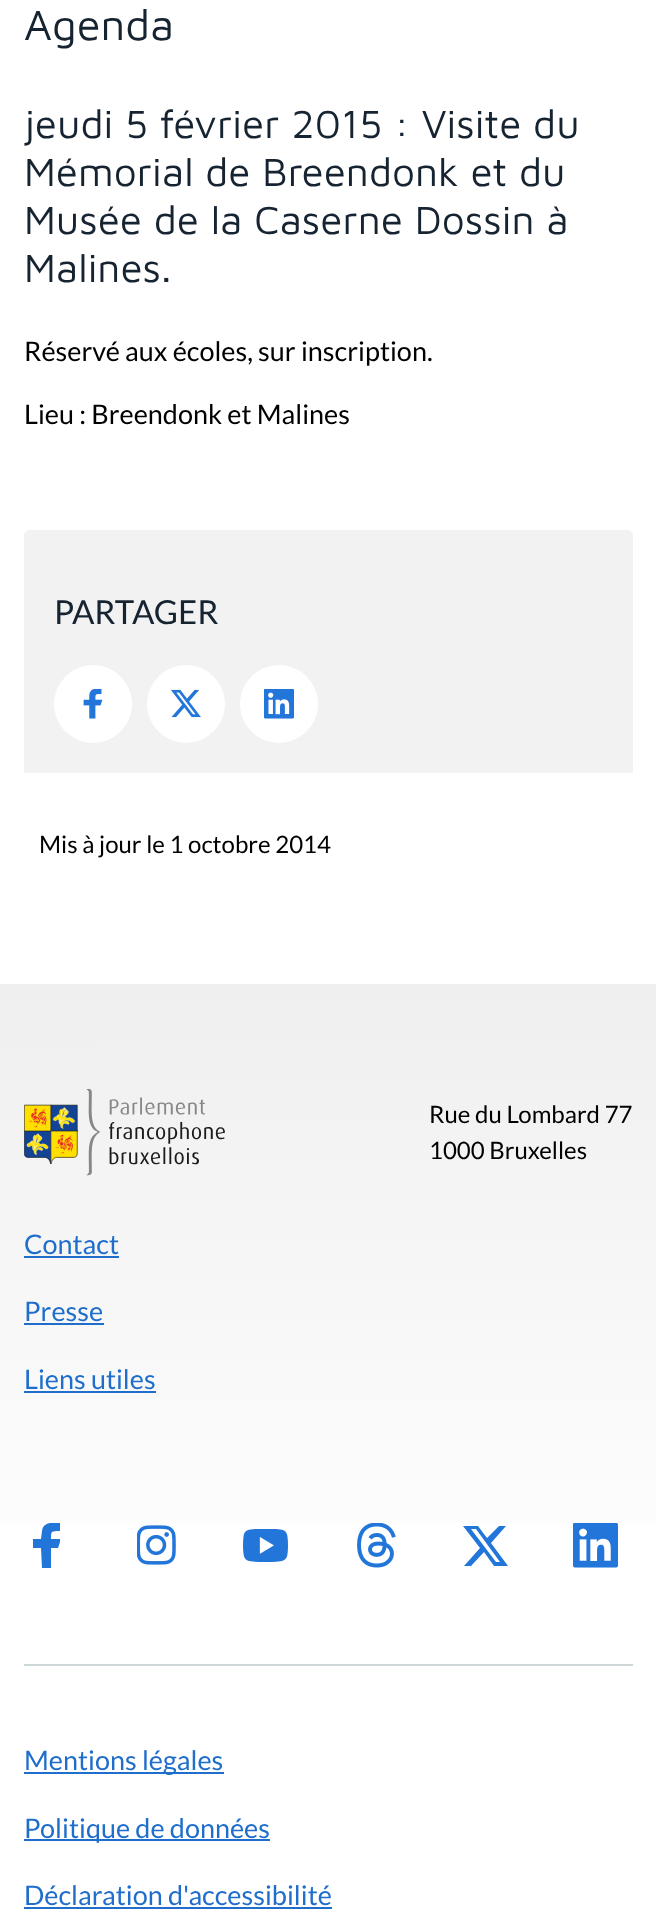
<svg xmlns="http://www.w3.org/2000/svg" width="656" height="1926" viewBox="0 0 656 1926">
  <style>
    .t1 { font: 43.5px Maven Pro; fill: #162331; }
    .t2 { font: 40.5px Maven Pro; fill: #162331; }
    .t3 { font: 27px Lato; fill: #000; }
    .t4 { font: 33px Lato; fill: #162331; }
    .t5 { font: 24px Lato; fill: #000; }
    .t6 { font: 27px Lato; fill: #1f6ecb; }
  </style>
  <defs>
    <linearGradient id="g1" gradientUnits="userSpaceOnUse" x1="329" y1="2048" x2="328" y2="984"><stop offset="0.4" stop-color="#fff"/><stop offset="1" stop-color="#efefef"/></linearGradient>
    <clipPath id="clip1"><rect x="33" y="1523" width="27" height="45"/></clipPath>
  </defs>
  <rect width="100%" height="100%" fill="#fff"/>
  <text x="24" y="40" class="t1">Agenda</text>
  <text x="24" y="138" class="t2">jeudi 5 février 2015 : Visite du</text>
  <text x="24" y="186" class="t2">Mémorial de Breendonk et du</text>
  <text x="24" y="234" class="t2">Musée de la Caserne Dossin à</text>
  <text x="24" y="282" class="t2">Malines.</text>
  <text x="24" y="361" class="t3">Réservé aux écoles, sur inscription.</text>
  <text x="24" y="424" class="t3">Lieu : Breendonk et Malines</text>
  <path d="M30 530H627C630.5 530 633 532.5 633 536V773H24V536C24 532.5 26.5 530 30 530Z" fill="#f2f2f2"/>
  <text x="54" y="624" class="t4">PARTAGER</text>
  <circle cx="93" cy="704" r="39" fill="#fff"/>
  <image x="83" y="689" width="20" height="30" href="images/1.png"/>
  <circle cx="186" cy="704" r="39" fill="#fff"/>
  <image x="171" y="689" width="30" height="29" href="images/2.png"/>
  <circle cx="279" cy="704" r="39" fill="#fff"/>
  <image x="264" y="689" width="30" height="30" href="images/3.png"/>
  <text x="39" y="853" class="t5">Mis à jour le 1 octobre 2014</text>
  <rect x="0" y="984" width="656" height="539" fill="url(#g1)"/>
  <image x="24" y="1089" width="201" height="87" href="images/4.png"/>
  <text x="429" y="1123" class="t5">Rue du Lombard 77</text>
  <text x="429" y="1159" class="t5">1000 Bruxelles</text>
  <rect x="24" y="1664" width="609" height="2" fill="#cdd7d8"/>
  <text x="24" y="1254" class="t6">Contact</text>
  <rect x="24" y="1256" width="95" height="2" fill="#1f6ecb"/>
  <text x="24" y="1321" class="t6">Presse</text>
  <rect x="24" y="1323" width="80" height="2" fill="#1f6ecb"/>
  <text x="24" y="1389" class="t6">Liens utiles</text>
  <rect x="24" y="1391" width="132" height="2" fill="#1f6ecb"/>
  <g clip-path="url(#clip1)">
    <path d="M42 1568L41 1548H33V1539H41L42 1531C43 1522 53 1522 60 1523V1531C51 1531 51 1531 51 1539H61L58 1548H51V1568Z" fill="#2276d9"/>
  </g>
  <image x="137" y="1525" width="39" height="40" href="images/5.png"/>
  <image x="243" y="1529" width="45" height="33" href="images/6.png"/>
  <image x="357" y="1523" width="39" height="45" href="images/7.png"/>
  <path d="M499 1526H506L491 1543L508 1566H494L484 1552L471 1566H464L480 1548L463 1526H478L487 1538ZM496 1562H500L476 1529H471Z" fill="#2276d9"/>
  <image x="573" y="1523" width="45" height="45" href="images/8.png"/>
  <rect x="24" y="1772" width="200" height="2" fill="#1f6ecb"/>
  <text x="24" y="1770" class="t6">Mentions légales</text>
  <rect x="24" y="1839" width="246" height="2" fill="#1f6ecb"/>
  <text x="24" y="1838" class="t6">Politique de données</text>
  <text x="24" y="1905" class="t6">Déclaration d'accessibilité</text>
  <rect x="24" y="1907" width="308" height="2" fill="#1f6ecb"/>
</svg>
